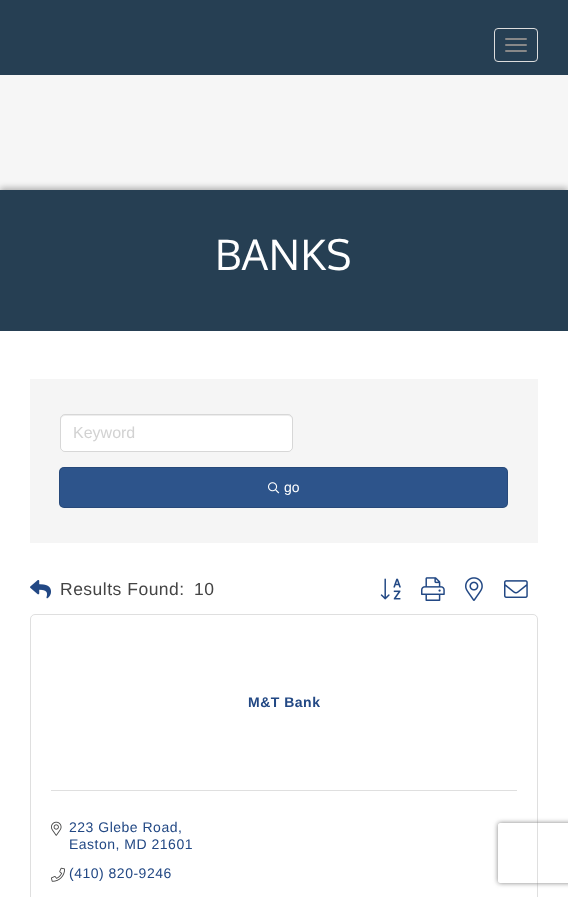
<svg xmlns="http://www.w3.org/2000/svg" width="568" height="897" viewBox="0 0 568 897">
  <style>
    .t1 { font: 42px Oxygen; letter-spacing: 0.5px; fill: #fff; }
    .t2 { font: 16px Liberation Sans; fill: #d2d2d2; }
    .t3 { font: 14px Liberation Sans; fill: #fff; }
    .t4 { font: 17.5px Liberation Sans; letter-spacing: 0.5px; fill: #444; }
    .t5 { font: bold 14px Liberation Sans; letter-spacing: 0.5px; fill: #224884; }
    .t6 { font: 14px Liberation Sans; letter-spacing: 0.5px; fill: #224884; }
  </style>
  <defs>
    <clipPath id="clip1"><path d="M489 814H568V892H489ZM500 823H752C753 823 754 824 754 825V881C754 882 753 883 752 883H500C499 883 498 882 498 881V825C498 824 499 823 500 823Z" clip-rule="evenodd"/></clipPath>
  </defs>
  <rect width="100%" height="100%" fill="#f6f6f6"/>
  <rect x="0" y="0" width="568" height="75" fill="#263f53"/>
  <rect x="494.5" y="28.5" width="43" height="33" rx="3.5" fill="none" stroke="#ddd"/>
  <rect x="505" y="38" width="22" height="2" rx="1" fill="#888"/>
  <rect x="505" y="44" width="22" height="2" rx="1" fill="#888"/>
  <rect x="505" y="50" width="22" height="2" rx="1" fill="#888"/>
  <rect x="0" y="188" width="568" height="141" fill="#0000004d" filter="blur(3px)"/>
  <rect x="0" y="190" width="568" height="141" fill="#263f53"/>
  <text x="215" y="270" class="t1">BANKS</text>
  <rect x="0" y="331" width="568" height="566" fill="#fff"/>
  <rect x="30" y="379" width="508" height="164" fill="#f5f5f5"/>
  <rect x="61" y="415" width="231" height="36" rx="4" fill="#fff"/>
  <path d="M65 416H288C290 416 292 418 292 420C292 417 291 415 288 415H65C62 415 61 417 61 420C61 418 63 416 65 416Z" fill="#00000012"/>
  <rect x="60.5" y="414.5" width="232" height="37" rx="4.5" fill="none" stroke="#0000001f"/>
  <text x="73" y="438" class="t2">Keyword</text>
  <rect x="59" y="467" width="449" height="41" rx="5" fill="#2d548b"/>
  <rect x="59.5" y="467.5" width="448" height="40" rx="4.5" fill="none" stroke="#0000001f"/>
  <image x="268" y="482" width="12" height="12" href="images/1.png"/>
  <text x="284" y="492" class="t3">go</text>
  <image x="30" y="580" width="21" height="19" href="images/2.png"/>
  <text x="60" y="595" class="t4">Results Found:</text>
  <text x="194" y="595" class="t4">10</text>
  <image x="380" y="578" width="21" height="22" href="images/3.png"/>
  <image x="421" y="577" width="24" height="24" href="images/4.png"/>
  <image x="465" y="577" width="18" height="24" href="images/5.png"/>
  <image x="504" y="580" width="24" height="18" href="images/6.png"/>
  <rect x="30.5" y="614.5" width="507" height="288" rx="4.5" fill="none" stroke="#dfdfdf"/>
  <text x="248" y="707" class="t5">M&amp;T Bank</text>
  <rect x="51" y="790" width="466" height="1" fill="#dfdfdf"/>
  <image x="51" y="821" width="11" height="15" href="images/7.png"/>
  <text x="69" y="832" class="t6">223 Glebe Road,</text>
  <text x="69" y="849" class="t6">Easton, MD 21601</text>
  <image x="51" y="867" width="14" height="15" href="images/8.png"/>
  <text x="69" y="878" class="t6">(410) 820-9246</text>
  <g clip-path="url(#clip1)">
    <rect x="498" y="823" width="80" height="60" rx="2" fill="#808080" filter="blur(2.5px)"/>
  </g>
</svg>
